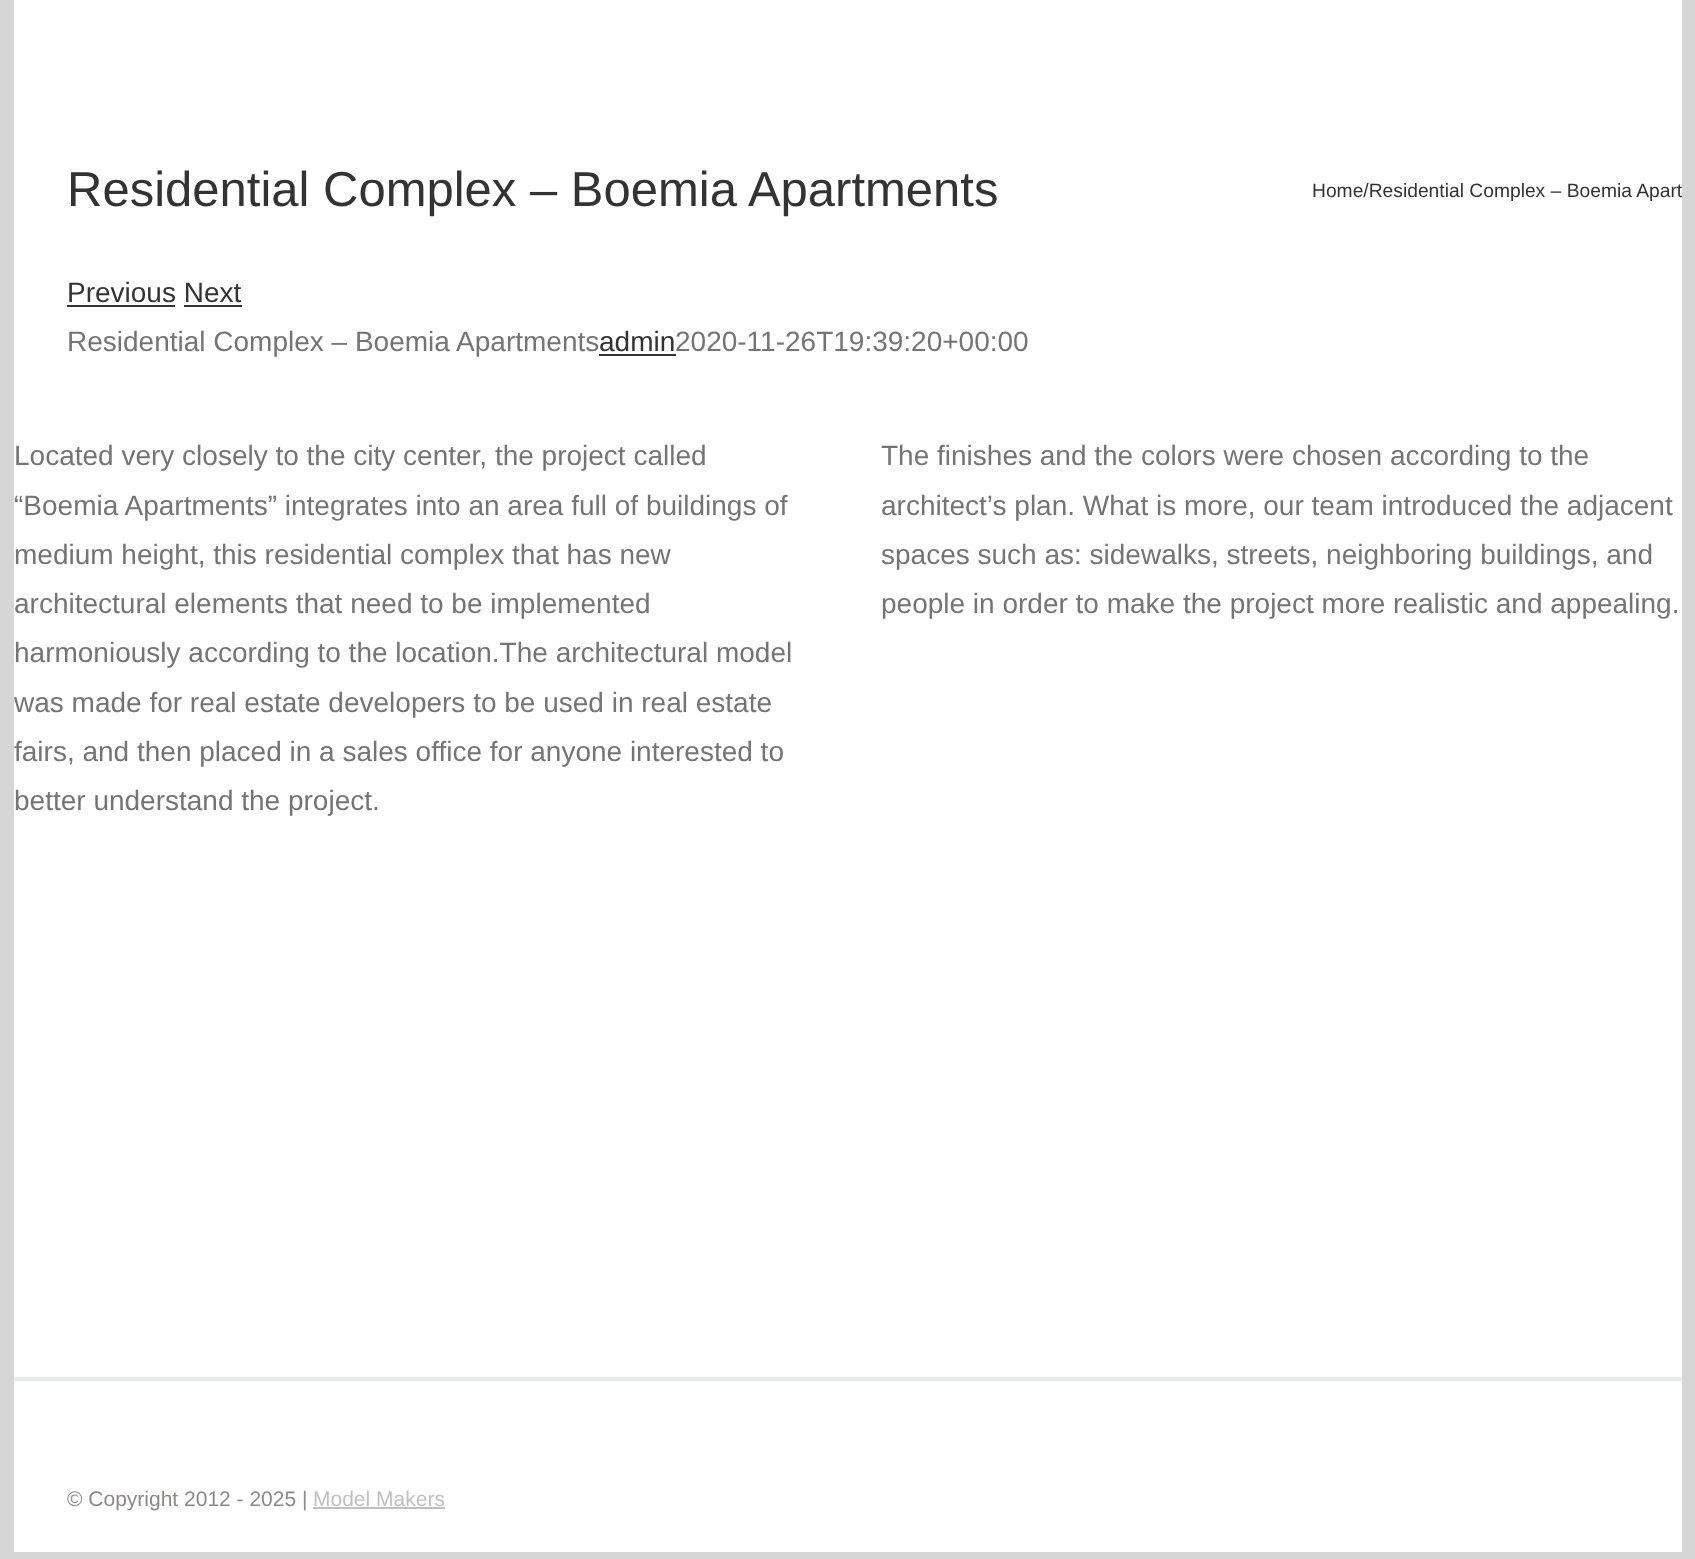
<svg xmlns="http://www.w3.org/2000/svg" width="1695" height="1559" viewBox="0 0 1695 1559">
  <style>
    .t1 { font: 49px Liberation Sans; fill: #333; }
    .t2 { font: 19.25px Liberation Sans; fill: #333; }
    .t3 { font: 28px Liberation Sans; fill: #333; }
    .t4 { font: 28px Liberation Sans; fill: #747474; }
    .t5 { font: 21px Liberation Sans; fill: #8c8989; }
    .t6 { font: 21px Liberation Sans; fill: #bfbfbf; }
  </style>
  <rect width="100%" height="100%" fill="#d7d6d6"/>
  <rect x="14" y="0" width="1668" height="1552" fill="#fff"/>
  <text x="67" y="206" class="t1">Residential Complex – Boemia Apartments</text>
  <text x="1312" y="197" class="t2">Home/Residential Complex – Boemia Apart</text>
  <text x="67" y="302" class="t3">Previous Next</text>
  <rect x="67" y="305" width="108" height="2" fill="#333"/>
  <rect x="184" y="305" width="58" height="2" fill="#333"/>
  <text x="67" y="351" class="t4">Residential Complex – Boemia Apartments</text>
  <text x="599" y="351" class="t3">admin</text>
  <rect x="599" y="354" width="77" height="2" fill="#333"/>
  <text x="675" y="351" class="t4">2020-11-26T19:39:20+00:00</text>
  <text x="14" y="465" class="t4">Located very closely to the city center, the project called</text>
  <text x="14" y="515" class="t4">“Boemia Apartments” integrates into an area full of buildings of</text>
  <text x="14" y="564" class="t4">medium height, this residential complex that has new</text>
  <text x="14" y="613" class="t4">architectural elements that need to be implemented</text>
  <text x="14" y="662" class="t4">harmoniously according to the location.The architectural model</text>
  <text x="14" y="712" class="t4">was made for real estate developers to be used in real estate</text>
  <text x="14" y="761" class="t4">fairs, and then placed in a sales office for anyone interested to</text>
  <text x="14" y="810" class="t4">better understand the project.</text>
  <text x="881" y="465" class="t4">The finishes and the colors were chosen according to the</text>
  <text x="881" y="515" class="t4">architect’s plan. What is more, our team introduced the adjacent</text>
  <text x="881" y="564" class="t4">spaces such as: sidewalks, streets, neighboring buildings, and</text>
  <text x="881" y="613" class="t4">people in order to make the project more realistic and appealing.</text>
  <rect x="14" y="1377" width="1668" height="4" fill="#e9eaee"/>
  <text x="67" y="1506" class="t5">© Copyright 2012 - 2025 |</text>
  <text x="313" y="1506" class="t6">Model Makers</text>
  <rect x="313" y="1507" width="132" height="2" fill="#bfbfbf"/>
</svg>
